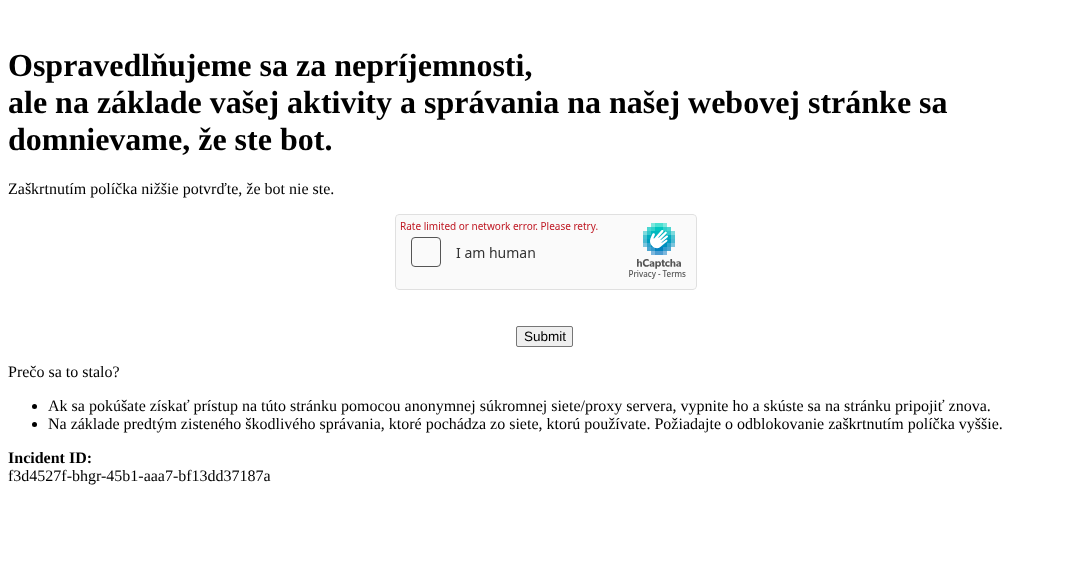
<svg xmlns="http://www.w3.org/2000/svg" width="1089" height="561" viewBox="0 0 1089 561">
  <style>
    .t1 { font: bold 32px Liberation Serif; fill: #000; }
    .t2 { font: 16px Liberation Serif; fill: #000; }
    .t3 { font: 13.5px Liberation Sans; fill: #000; }
    .t4 { font: bold 16px Liberation Serif; fill: #000; }
  </style>
  <rect width="100%" height="100%" fill="#fff"/>
  <text x="8" y="76" class="t1">Ospravedlňujeme sa za nepríjemnosti,</text>
  <text x="8" y="113" class="t1">ale na základe vašej aktivity a správania na našej webovej stránke sa</text>
  <text x="8" y="150" class="t1">domnievame, že ste bot.</text>
  <text x="8" y="194" class="t2">Zaškrtnutím políčka nižšie potvrďte, že bot nie ste.</text>
  <image x="395" y="214" width="302" height="76" href="images/1.png"/>
  <rect x="516.5" y="326.5" width="56" height="20" rx="1.5" fill="#efefef" stroke="#767676"/>
  <text x="524" y="341" class="t3">Submit</text>
  <text x="8" y="377" class="t2">Prečo sa to stalo?</text>
  <circle cx="34.5" cy="406.5" r="2.5" fill="#000"/>
  <text x="48" y="411" class="t2">Ak sa pokúšate získať prístup na túto stránku pomocou anonymnej súkromnej siete/proxy servera, vypnite ho a skúste sa na stránku pripojiť znova.</text>
  <circle cx="34.5" cy="424.5" r="2.5" fill="#000"/>
  <text x="48" y="429" class="t2">Na základe predtým zisteného škodlivého správania, ktoré pochádza zo siete, ktorú používate. Požiadajte o odblokovanie zaškrtnutím políčka vyššie.</text>
  <text x="8" y="463" class="t4">Incident ID:</text>
  <text x="8" y="481" class="t2">f3d4527f-bhgr-45b1-aaa7-bf13dd37187a</text>
</svg>
